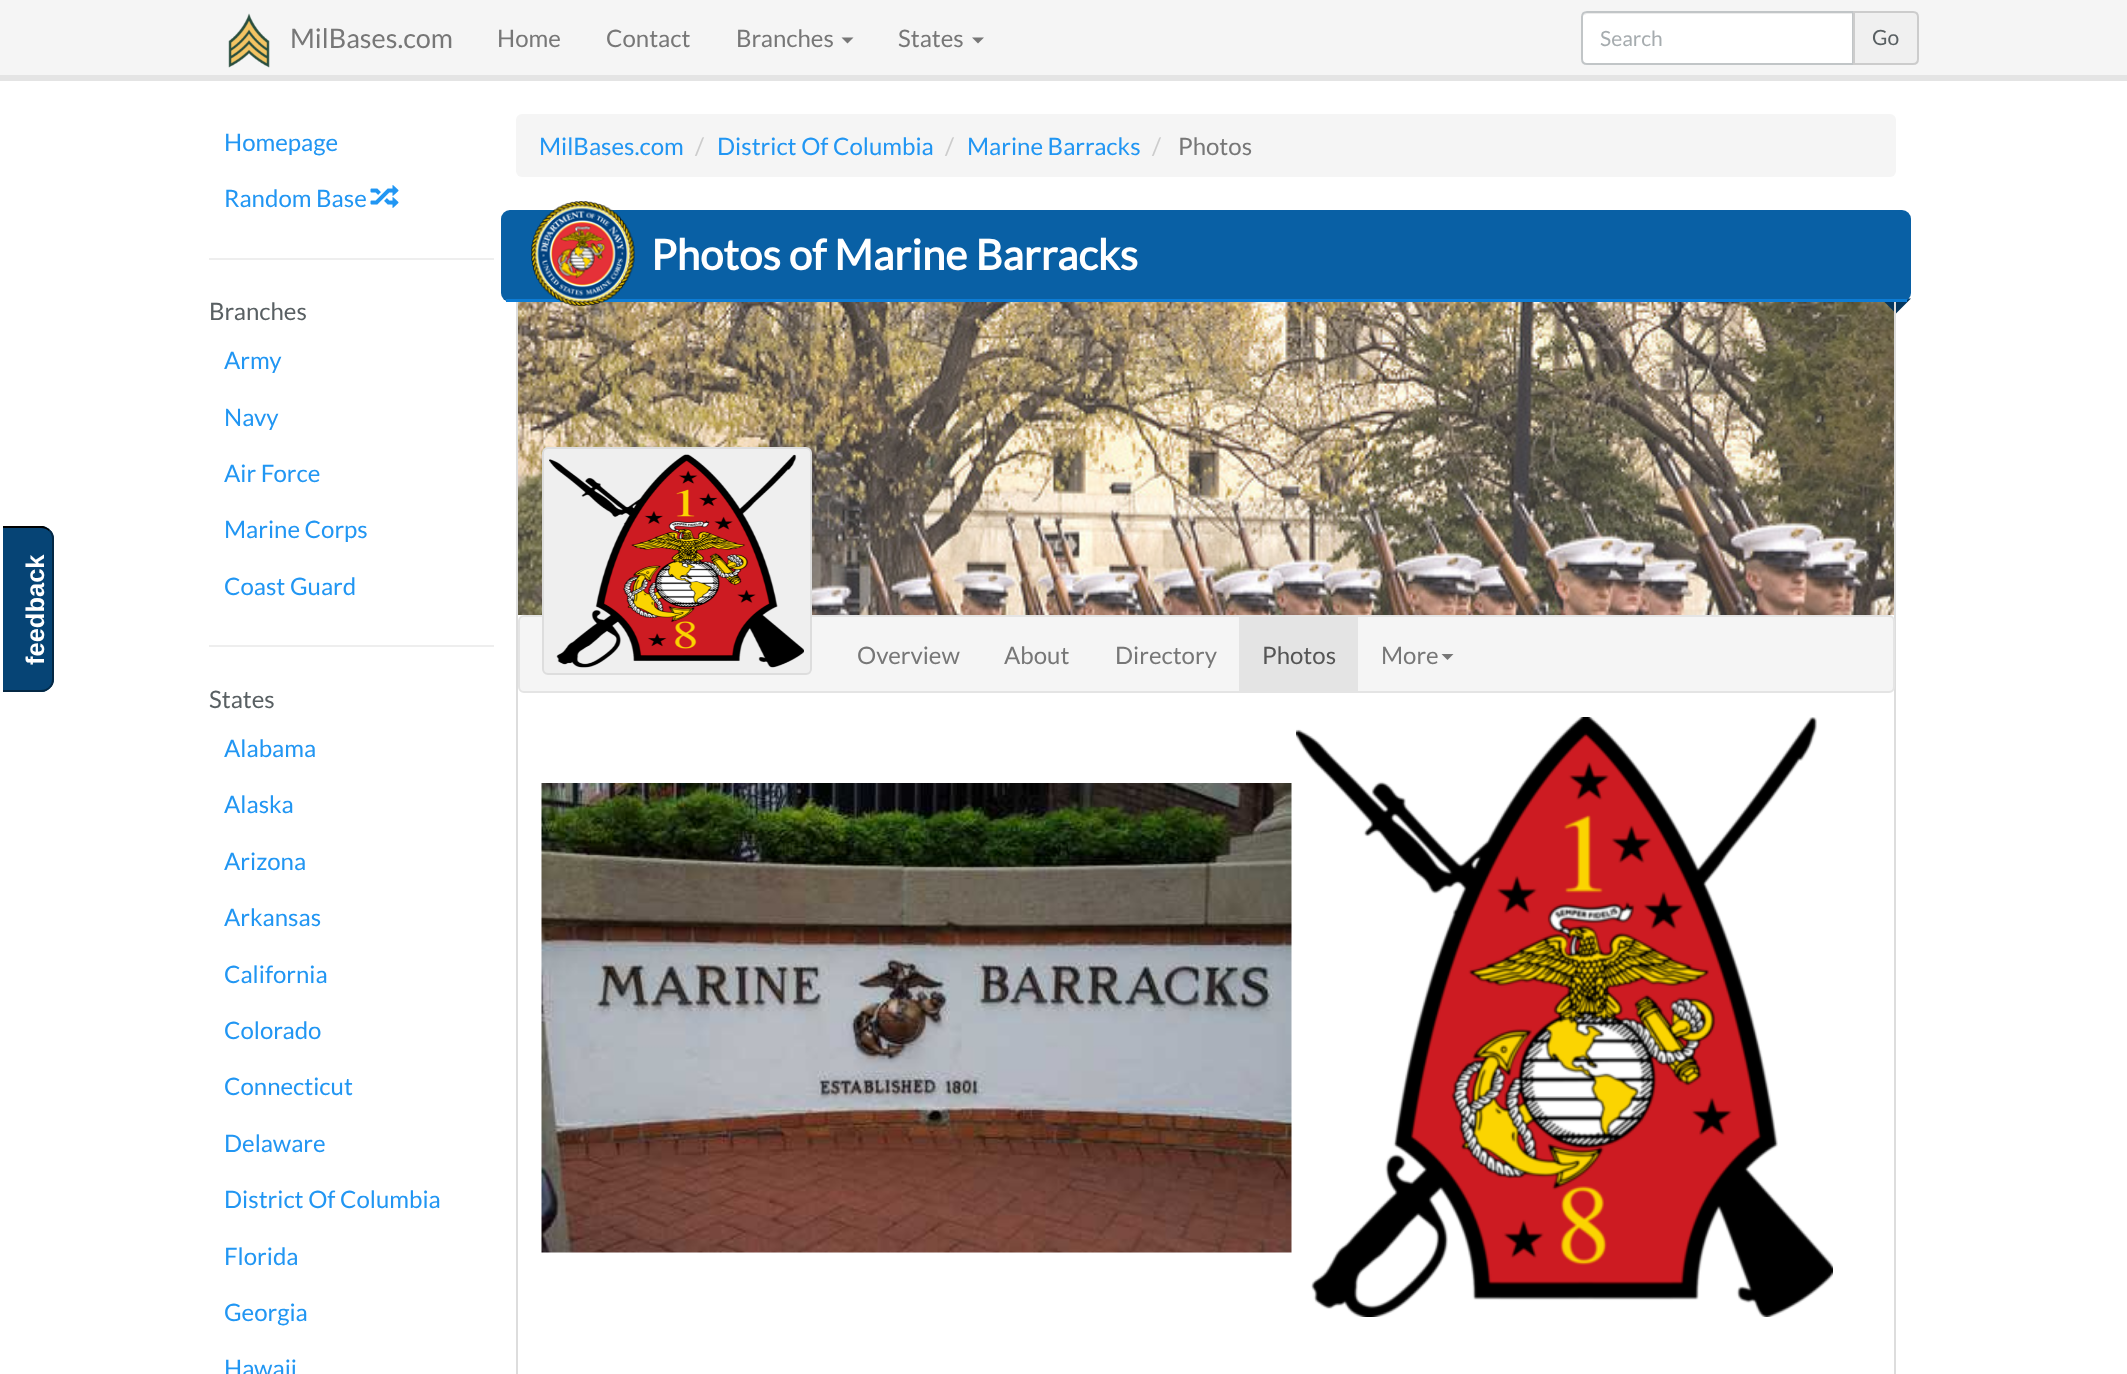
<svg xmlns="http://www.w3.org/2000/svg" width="2127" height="1374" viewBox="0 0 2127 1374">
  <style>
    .t1 { font: 27px Lato; fill: #777; }
    .t2 { font: 24px Lato; fill: #777; }
    .t3 { font: 21px Lato; fill: #a6acaf; }
    .t4 { font: 21px Lato; fill: #596063; }
    .t5 { font: bold 25.5px Liberation Sans; fill: #fff; }
    .t6 { font: 24px Lato; fill: #2196f3; }
    .t7 { font: 24px Lato; fill: #596063; }
    .t8 { font: 24px Lato; fill: #ccc; }
    .t9 { font: bold 42px Lato; fill: #fff; }
    .t10 { font: 24px Lato; fill: #555; }
  </style>
  <rect width="100%" height="100%" fill="#fff"/>
  <rect x="0" y="0" width="2127" height="75" fill="#f5f5f5"/>
  <rect x="0" y="75" width="2127" height="6" fill="#e4e4e4"/>
  <image x="228" y="13" width="42" height="55" href="images/1.png"/>
  <text x="290" y="48" class="t1">MilBases.com</text>
  <text x="497" y="47" class="t2">Home</text>
  <text x="606" y="47" class="t2">Contact</text>
  <text x="736" y="47" class="t2">Branches</text>
  <path d="M841.5 37.5H853.5L847.5 43.5Z" fill="#777"/>
  <text x="898" y="47" class="t2">States</text>
  <path d="M972 37.5H984L978 43.5Z" fill="#777"/>
  <path d="M1587 11H1854V65H1587C1583.5 65 1581 62.5 1581 59V17C1581 13.5 1583.5 11 1587 11Z" fill="#fff"/>
  <path d="M1587 14H1852V63H1853V12H1588C1586 12 1584 14 1583 16C1584 15 1586 14 1587 14Z" fill="#ececec"/>
  <path d="M1587 12H1853V64H1587C1584 64 1582 62 1582 59V17C1582 14 1584 12 1587 12Z" fill="none" stroke="#c1c5c7" stroke-width="2"/>
  <text x="1600" y="46" class="t3">Search</text>
  <path d="M1854 12H1913C1916 12 1918 14 1918 17V59C1918 62 1916 64 1913 64H1854Z" fill="#f0f0f0" stroke="#ccc" stroke-width="2"/>
  <text x="1872" y="45" class="t4">Go</text>
  <path d="M3 692V526H41C48 526 54 532 54 539V679C54 686 48 692 41 692Z" fill="#064475"/>
  <path d="M3 526H43C46 527 48 528 50 530L49 531C47 529 44 528 41 528H3Z" fill="#000"/>
  <path d="M54 679V539C54 536 53 532 50 530L49 531C51 533 52 536 52 539V679C52 682 51 685 49 687L50 688C53 686 54 682 54 679Z" fill="#042844"/>
  <path d="M3 690H41C44 690 47 689 49 687L50 688C48 690 45 692 42 692H3Z" fill="#042844"/>
  <text x="44" y="665" transform="rotate(-90 44 665)" class="t5">feedback</text>
  <text x="224" y="151" class="t6">Homepage</text>
  <text x="224" y="207" class="t6">Random Base</text>
  <image x="370" y="185" width="29" height="23" href="images/2.png"/>
  <rect x="209" y="258" width="285" height="2" fill="#eee"/>
  <text x="209" y="320" class="t7">Branches</text>
  <text x="224" y="369" class="t6">Army</text>
  <text x="224" y="426" class="t6">Navy</text>
  <text x="224" y="482" class="t6">Air Force</text>
  <text x="224" y="538" class="t6">Marine Corps</text>
  <text x="224" y="595" class="t6">Coast Guard</text>
  <rect x="209" y="645" width="285" height="2" fill="#eee"/>
  <text x="209" y="708" class="t7">States</text>
  <text x="224" y="757" class="t6">Alabama</text>
  <text x="224" y="813" class="t6">Alaska</text>
  <text x="224" y="870" class="t6">Arizona</text>
  <text x="224" y="926" class="t6">Arkansas</text>
  <text x="224" y="983" class="t6">California</text>
  <text x="224" y="1039" class="t6">Colorado</text>
  <text x="224" y="1095" class="t6">Connecticut</text>
  <text x="224" y="1152" class="t6">Delaware</text>
  <text x="224" y="1208" class="t6">District Of Columbia</text>
  <text x="224" y="1265" class="t6">Florida</text>
  <text x="224" y="1321" class="t6">Georgia</text>
  <text x="224" y="1377" class="t6">Hawaii</text>
  <rect x="516" y="114" width="1380" height="63" rx="6" fill="#f5f5f5"/>
  <text x="539" y="155" class="t6">MilBases.com</text>
  <text x="695" y="155" class="t8">/</text>
  <text x="717" y="155" class="t6">District Of Columbia</text>
  <text x="945" y="155" class="t8">/</text>
  <text x="967" y="155" class="t6">Marine Barracks</text>
  <text x="1152" y="155" class="t8">/</text>
  <text x="1178" y="155" class="t2">Photos</text>
  <image x="518" y="302" width="1376" height="313" href="images/4.png"/>
  <path d="M1881 298.5H1911L1896 313.5Z" fill="#05365d"/>
  <path d="M516 291H1896V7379C1896 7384 1892 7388 1888 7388H524C520 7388 516 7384 516 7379ZM518 291H1894V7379C1894 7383 1891 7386 1888 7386H524C521 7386 518 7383 518 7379Z" fill="#ddd" fill-rule="evenodd"/>
  <rect x="501" y="210" width="1410" height="92" rx="9" fill="#0960a5"/>
  <rect x="506" y="299" width="1401" height="3" fill="#0c7cd5"/>
  <image x="531" y="201" width="104" height="105" href="images/3.png"/>
  <text x="651" y="270" class="t9">Photos of Marine Barracks</text>
  <rect x="519" y="616" width="1375" height="76" rx="5" fill="#f5f5f5" stroke="#e4e4e4" stroke-width="2"/>
  <rect x="543" y="448" width="268" height="226" rx="5" fill="#efefef" stroke="#ddd" stroke-width="2"/>
  <image x="549" y="454" width="255" height="214" href="images/5.png"/>
  <text x="857" y="664" class="t2">Overview</text>
  <text x="1004" y="664" class="t2">About</text>
  <text x="1115" y="664" class="t2">Directory</text>
  <rect x="1239" y="617" width="119" height="74" fill="#e4e4e4"/>
  <text x="1262" y="664" class="t10">Photos</text>
  <text x="1381" y="664" class="t2">More</text>
  <path d="M1441.5 654H1453.5L1447.5 660Z" fill="#777"/>
  <image x="541" y="783" width="751" height="470" href="images/6.png"/>
  <image x="1296" y="717" width="537" height="600" href="images/7.png"/>
</svg>
